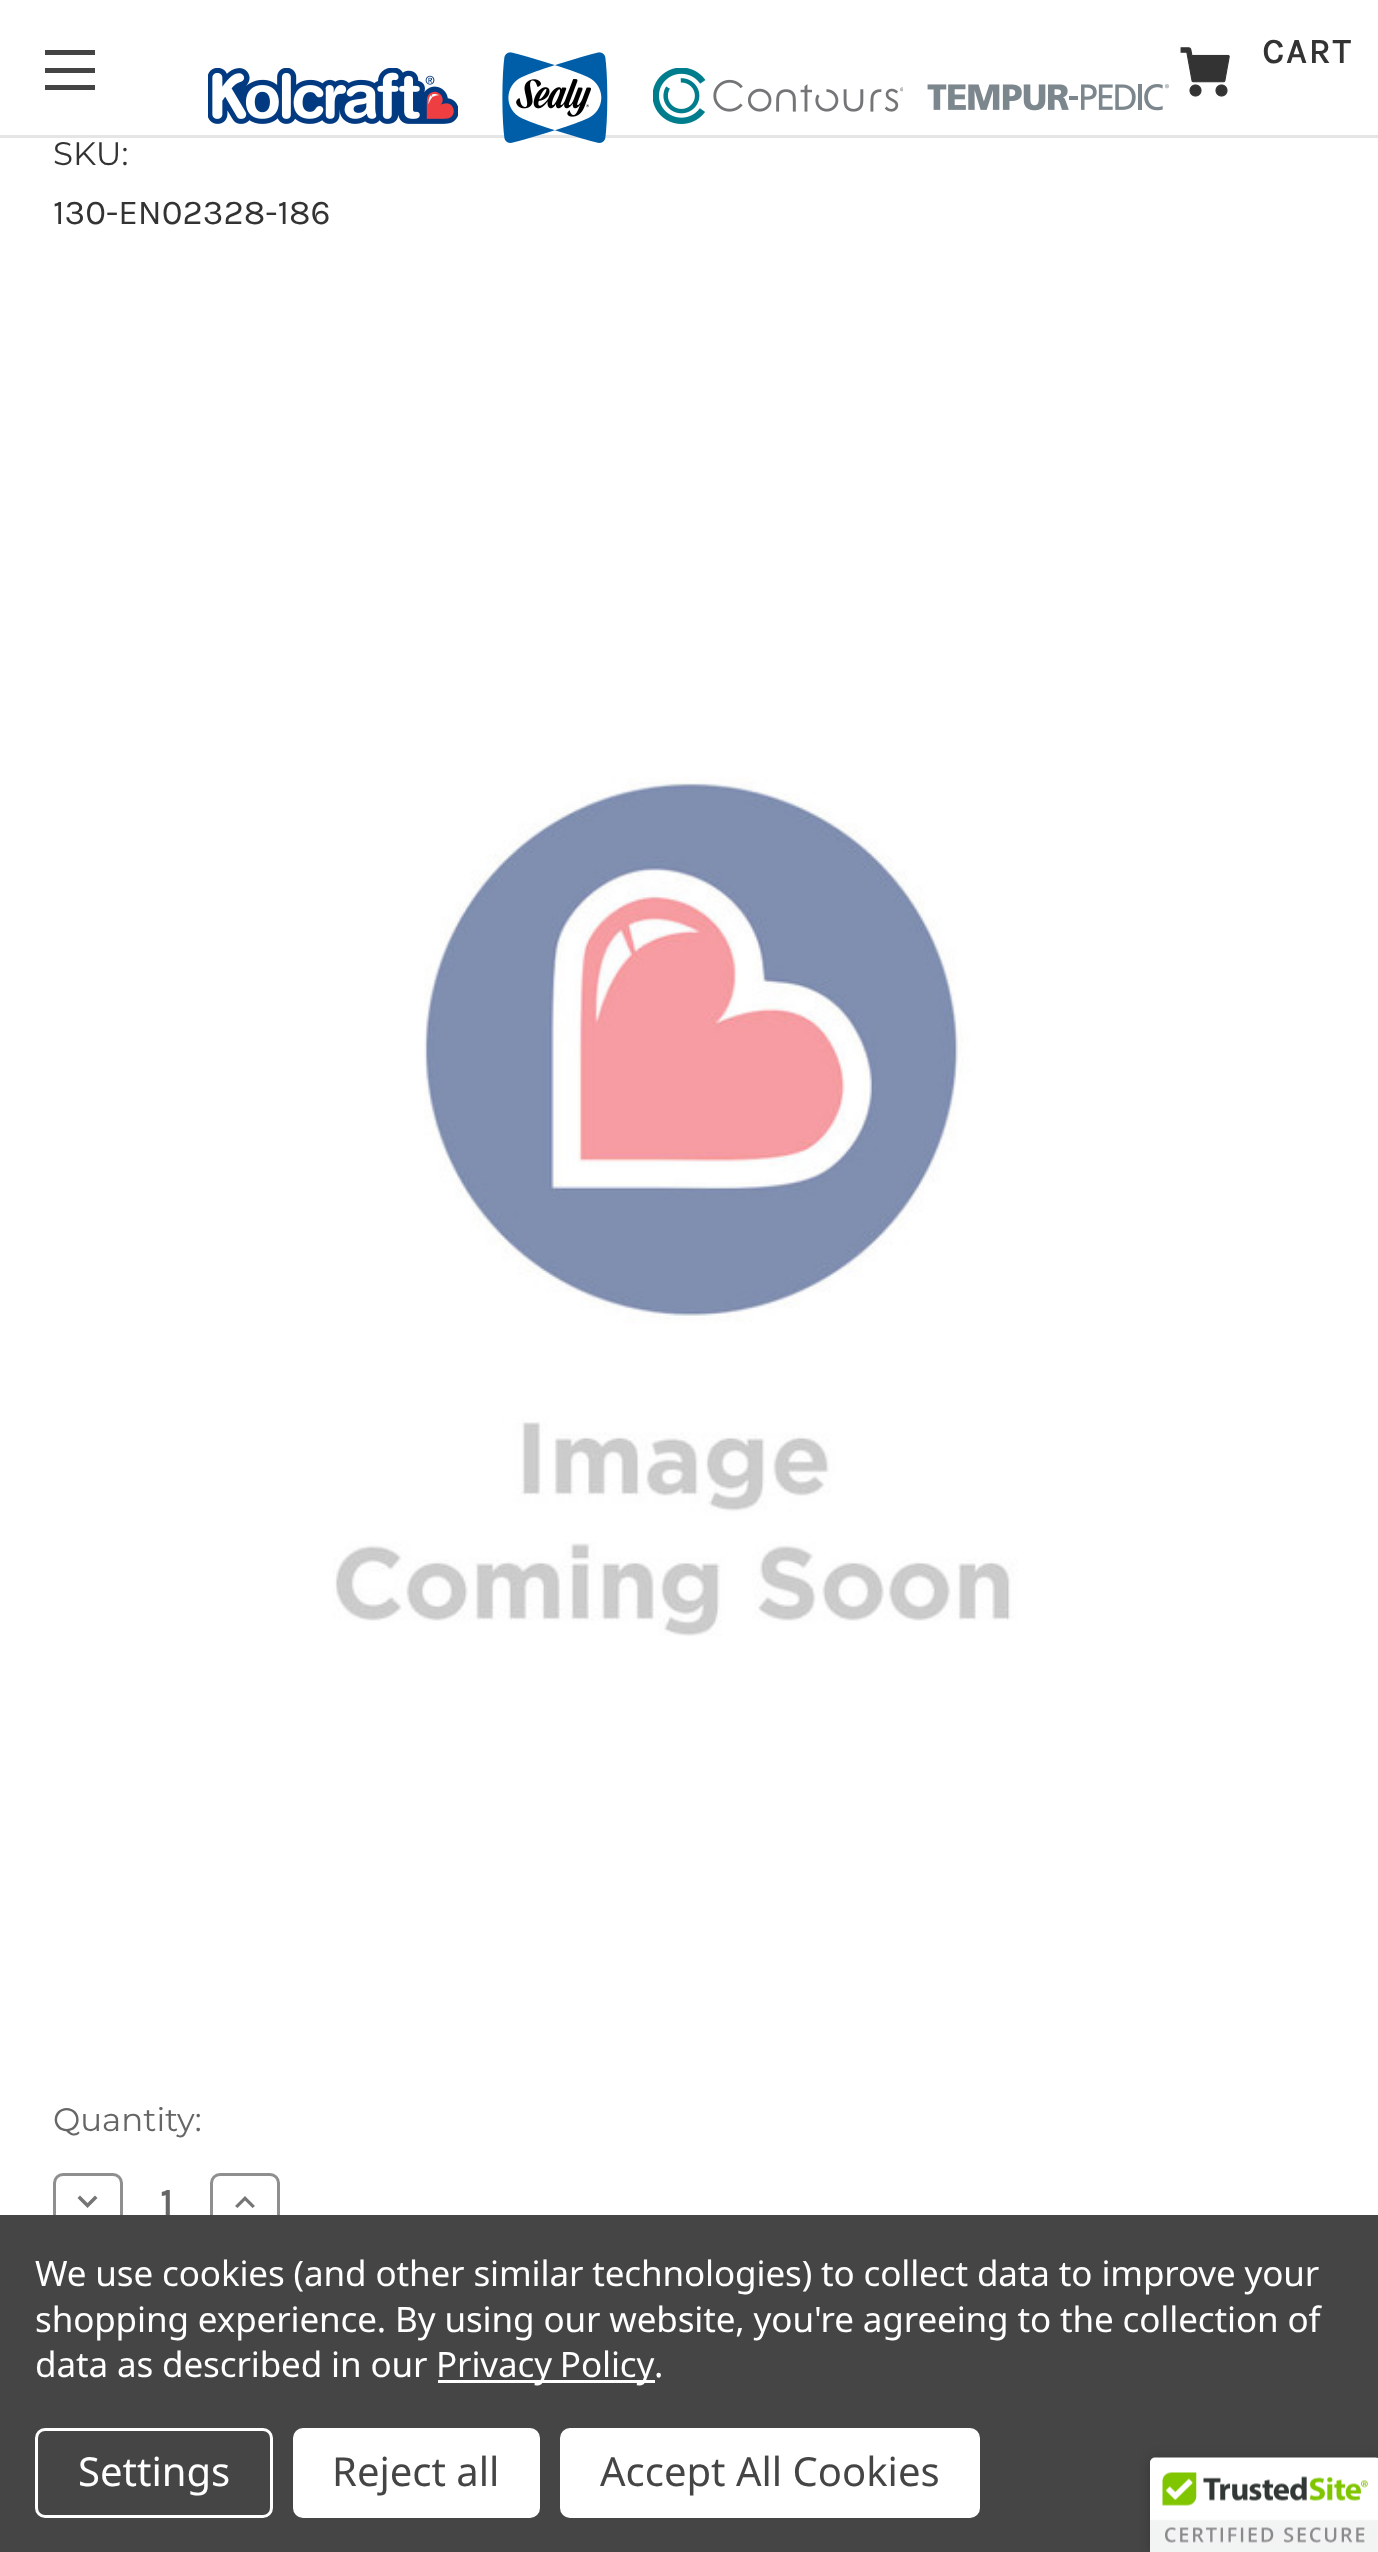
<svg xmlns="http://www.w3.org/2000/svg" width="1378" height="2552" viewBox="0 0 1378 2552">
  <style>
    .t1 { font: bold 35px Karla; letter-spacing: 2.5px; fill: #333; }
    .t2 { font: 32.5px Montserrat; fill: #333; }
    .t3 { font: 35px Karla; fill: #333; }
    .t4 { font: 32.5px Montserrat; fill: #666; }
    .t5 { font: bold 38px Karla; fill: #666; }
    .t6 { font: 35px Noto Sans; letter-spacing: -0.12px; fill: #fff; }
    .t7 { font: 40px Noto Sans; fill: #fff; }
    .t8 { font: 40px Noto Sans; fill: #454545; }
  </style>
  <rect width="100%" height="100%" fill="#fff"/>
  <rect x="0" y="135" width="1378" height="3" fill="#e5e5e5"/>
  <rect x="45" y="68" width="50" height="5" fill="#444"/>
  <rect x="45" y="50" width="50" height="5" fill="#444"/>
  <rect x="45" y="85" width="50" height="5" fill="#444"/>
  <image x="208" y="68" width="250" height="56" href="images/1.png"/>
  <image x="502" y="52" width="106" height="91" href="images/2.png"/>
  <image x="653" y="68" width="250" height="56" href="images/3.png"/>
  <image x="927" y="84" width="242" height="27" href="images/4.png"/>
  <image x="1180" y="47" width="50" height="50" href="images/5.png"/>
  <text x="1262" y="63" class="t1">CART</text>
  <text x="53" y="165" class="t2">SKU:</text>
  <text x="53" y="224" class="t3">130-EN02328-186</text>
  <image x="333" y="777" width="685" height="859" href="images/6.png"/>
  <text x="53" y="2131" class="t4">Quantity:</text>
  <rect x="54.5" y="2174.5" width="67" height="57" rx="8.5" fill="none" stroke="#8f8f8f" stroke-width="3"/>
  <path d="M80 2195.5L87.5 2203L95 2195.5L97.5 2198L87.5 2208L77.5 2198Z" fill="#757575"/>
  <text x="160" y="2215" class="t5">1</text>
  <rect x="211.5" y="2174.5" width="67" height="57" rx="8.5" fill="none" stroke="#8f8f8f" stroke-width="3"/>
  <path d="M237.5 2208L245 2200.5L252.5 2208L255 2206L245 2196L235 2206Z" fill="#757575"/>
  <rect x="0" y="2215" width="1378" height="337" fill="#454545"/>
  <text x="35" y="2286" class="t6">We use cookies (and other similar technologies) to collect data to improve your</text>
  <text x="35" y="2332" class="t6">shopping experience. By using our website, you're agreeing to the collection of</text>
  <text x="35" y="2377" class="t6">data as described in our</text>
  <rect x="438" y="2380" width="217" height="3" fill="#fff"/>
  <text x="436" y="2377" word-spacing="-1" class="t6">Privacy Policy</text>
  <text x="654" y="2377" class="t6">.</text>
  <rect x="36.5" y="2429.5" width="235" height="87" rx="8.5" fill="none" stroke="#fff" stroke-width="3"/>
  <text x="78" y="2486" class="t7">Settings</text>
  <rect x="293" y="2428" width="247" height="90" rx="10" fill="#fff"/>
  <text x="332" y="2486" class="t8">Reject all</text>
  <rect x="560" y="2428" width="420" height="90" rx="10" fill="#fff"/>
  <text x="600" y="2486" class="t8">Accept All Cookies</text>
  <rect x="1150" y="2458" width="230" height="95" rx="5" fill="#00000033" filter="blur(6px)"/>
  <path d="M1155 2458H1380V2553H1150V2463C1150 2460 1152 2458 1155 2458Z" fill="#fff"/>
  <image x="1150" y="2457" width="228" height="95" href="images/7.png"/>
</svg>
